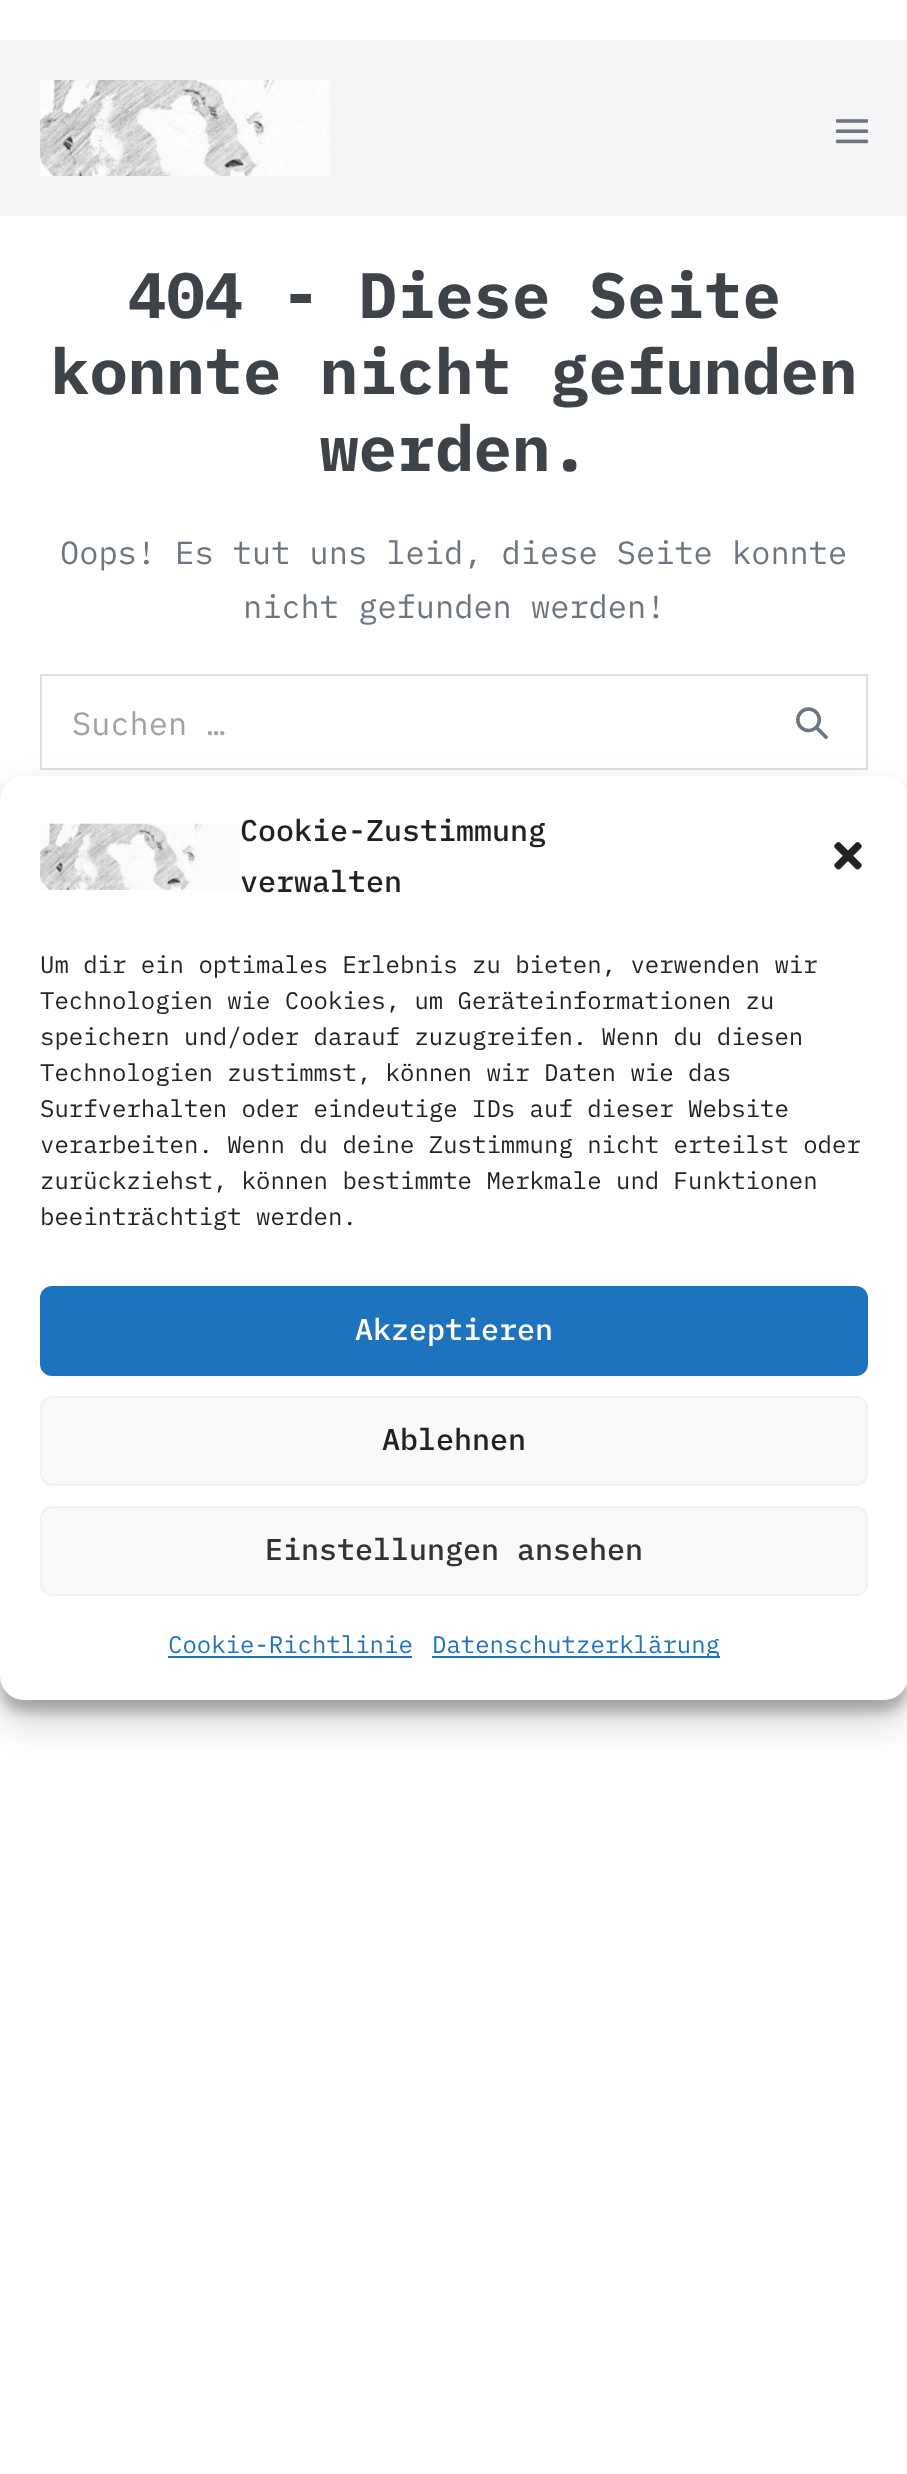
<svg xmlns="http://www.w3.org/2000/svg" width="907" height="2474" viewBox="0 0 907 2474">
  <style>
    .t1 { font: bold 64px IBM Plex Mono; fill: #3e4349; }
    .t2 { font: 32px IBM Plex Mono; fill: #6d7680; }
    .t3 { font: 32px IBM Plex Mono; fill: #9fa1a4; }
    .t4 { font: 500 30px IBM Plex Mono; fill: #222; }
    .t5 { font: 24px IBM Plex Mono; fill: #222; }
    .t6 { font: 500 30px IBM Plex Mono; fill: #fff; }
    .t7 { font: 500 30px IBM Plex Mono; fill: #333; }
    .t8 { font: 24px IBM Plex Mono; fill: #1e73be; }
  </style>
  <rect width="100%" height="100%" fill="#fff"/>
  <rect x="0" y="40" width="907" height="176" fill="#f5f5f7"/>
  <image x="40" y="80" width="290" height="96" href="images/1.png"/>
  <image x="836" y="119" width="33" height="25" href="images/2.png"/>
  <text x="128" y="318" class="t1">404 - Diese Seite</text>
  <text x="51" y="394" class="t1">konnte nicht gefunden</text>
  <text x="320" y="471" class="t1">werden.</text>
  <text x="60" y="564" class="t2">Oops! Es tut uns leid, diese Seite konnte</text>
  <text x="243" y="618" class="t2">nicht gefunden werden!</text>
  <rect x="41" y="675" width="826" height="94" fill="none" stroke="#dedee5" stroke-width="2"/>
  <text x="72" y="735" class="t3">Suchen …</text>
  <image x="796" y="707" width="32" height="33" href="images/3.png"/>
  <rect x="0" y="788" width="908" height="924" rx="24" fill="#0000003b" filter="blur(6px)"/>
  <rect x="0" y="796" width="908" height="924" rx="24" fill="#00000030" filter="blur(20px)"/>
  <rect x="0" y="776" width="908" height="924" rx="24" fill="#fff"/>
  <image x="40" y="823" width="200" height="67" href="images/4.png"/>
  <text x="240" y="841" class="t4">Cookie-Zustimmung</text>
  <text x="240" y="892" class="t4">verwalten</text>
  <image x="834" y="842" width="28" height="28" href="images/5.png"/>
  <text x="40" y="973" class="t5">Um dir ein optimales Erlebnis zu bieten, verwenden wir</text>
  <text x="40" y="1009" class="t5">Technologien wie Cookies, um Geräteinformationen zu</text>
  <text x="40" y="1045" class="t5">speichern und/oder darauf zuzugreifen. Wenn du diesen</text>
  <text x="40" y="1081" class="t5">Technologien zustimmst, können wir Daten wie das</text>
  <text x="40" y="1117" class="t5">Surfverhalten oder eindeutige IDs auf dieser Website</text>
  <text x="40" y="1153" class="t5">verarbeiten. Wenn du deine Zustimmung nicht erteilst oder</text>
  <text x="40" y="1189" class="t5">zurückziehst, können bestimmte Merkmale und Funktionen</text>
  <text x="40" y="1225" class="t5">beeinträchtigt werden.</text>
  <rect x="41" y="1287" width="826" height="88" rx="11" fill="#1e73be" stroke="#1e73be" stroke-width="2"/>
  <text x="355" y="1340" class="t6">Akzeptieren</text>
  <rect x="41" y="1397" width="826" height="88" rx="11" fill="#f9f9f9" stroke="#f2f2f2" stroke-width="2"/>
  <text x="382" y="1450" class="t4">Ablehnen</text>
  <rect x="41" y="1507" width="826" height="88" rx="11" fill="#f9f9f9" stroke="#f2f2f2" stroke-width="2"/>
  <text x="265" y="1560" class="t7">Einstellungen ansehen</text>
  <text x="168" y="1653" class="t8">Cookie-Richtlinie</text>
  <rect x="168" y="1656" width="244" height="2" fill="#1e73be"/>
  <rect x="432" y="1656" width="288" height="2" fill="#1e73be"/>
  <text x="432" y="1653" class="t8">Datenschutzerklärung</text>
</svg>
